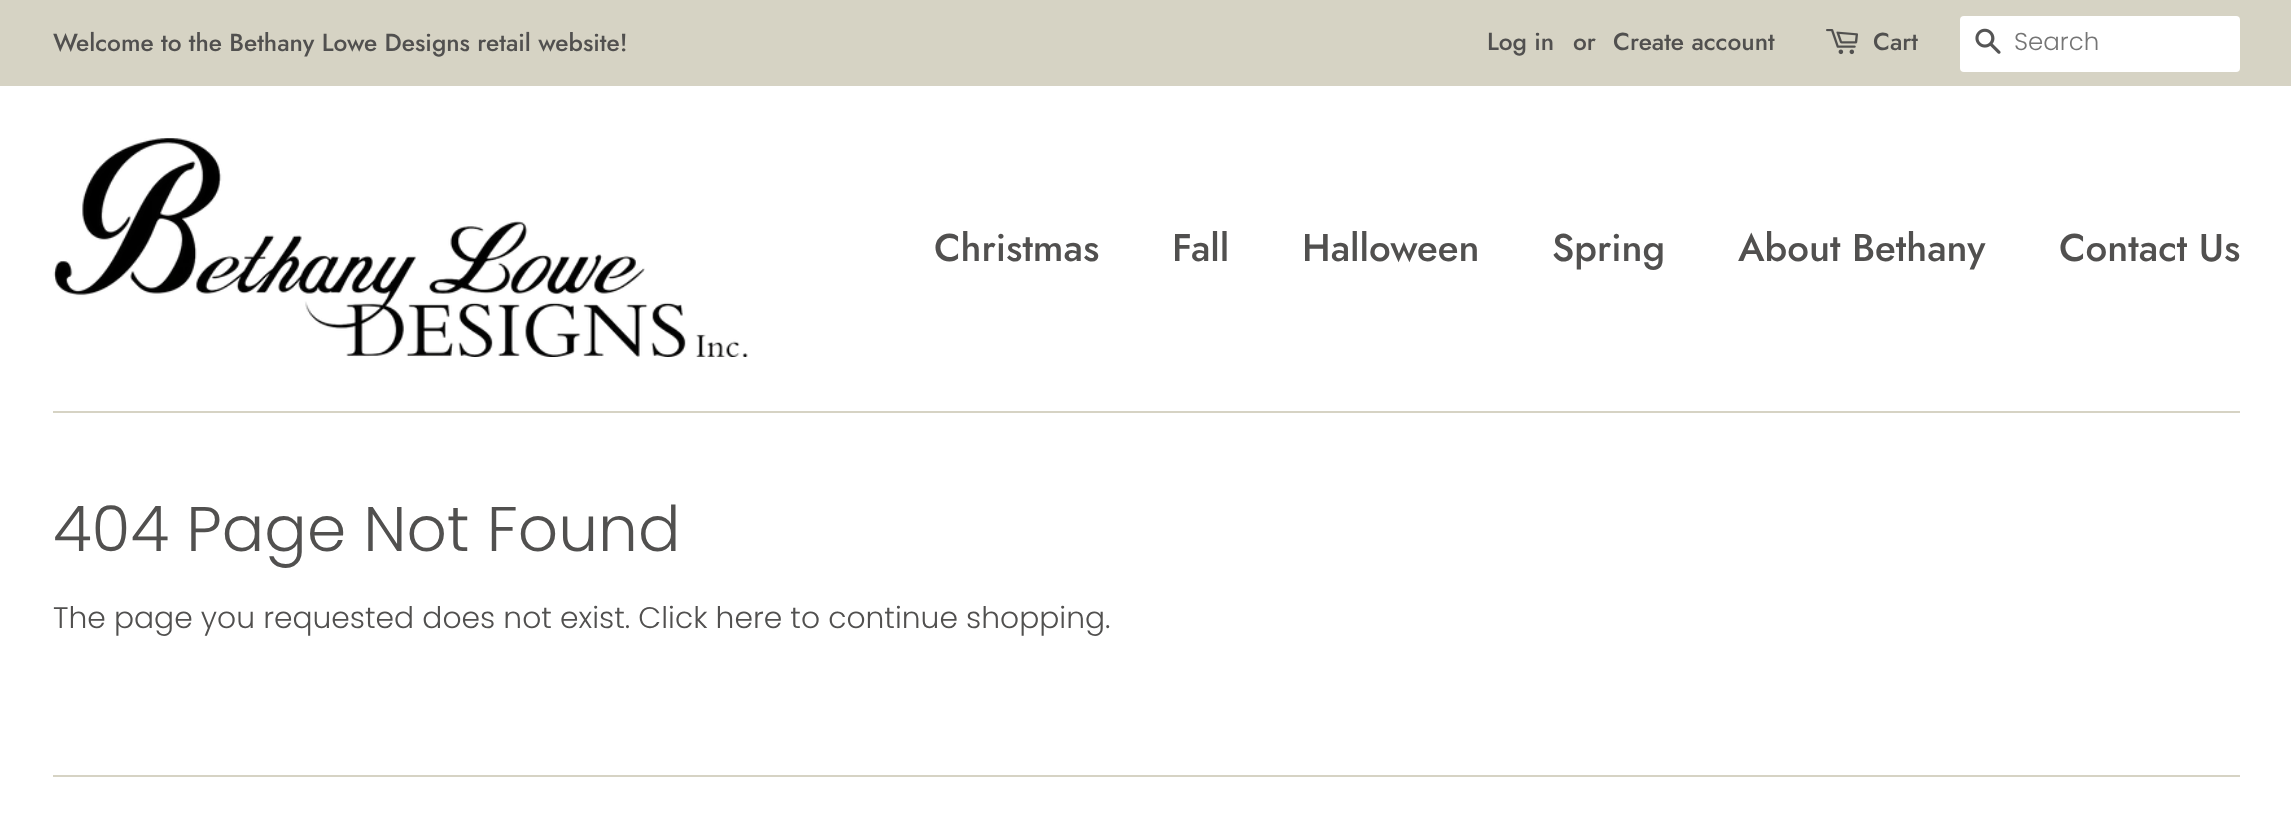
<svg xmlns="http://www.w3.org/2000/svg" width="2291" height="836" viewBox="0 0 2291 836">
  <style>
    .t1 { font: 500 24.5px Jost; fill: #51504f; }
    .t2 { font: 300 24.5px Poppins; fill: #757575; }
    .t3 { font: 500 38.5px Jost; fill: #51504f; }
    .t4 { font: 300 63px Poppins; fill: #51504f; }
    .t5 { font: 300 29.75px Poppins; fill: #51504f; }
  </style>
  <rect width="100%" height="100%" fill="#fff"/>
  <rect x="0" y="0" width="2291" height="86" fill="#d6d3c4"/>
  <text x="53" y="51" class="t1">Welcome to the Bethany Lowe Designs retail website!</text>
  <text x="1487" y="50" class="t1">Log in</text>
  <text x="1573" y="50" class="t1">or</text>
  <text x="1613" y="50" class="t1">Create account</text>
  <image x="1826" y="29" width="32" height="26" href="images/1.png"/>
  <text x="1873" y="50" class="t1">Cart</text>
  <rect x="1960" y="16" width="280" height="56" rx="4" fill="#fff"/>
  <image x="1975" y="28" width="26" height="26" href="images/2.png"/>
  <text x="2014" y="50" class="t2">Search</text>
  <rect x="53" y="411" width="2187" height="2" fill="#d6d3c4"/>
  <image x="53" y="138" width="695" height="219" href="images/3.png"/>
  <text x="934" y="261" class="t3">Christmas</text>
  <text x="1172" y="261" class="t3">Fall</text>
  <text x="1302" y="261" class="t3">Halloween</text>
  <text x="1552" y="261" class="t3">Spring</text>
  <text x="1738" y="261" class="t3">About Bethany</text>
  <text x="2059" y="261" class="t3">Contact Us</text>
  <text x="53" y="551" class="t4">404 Page Not Found</text>
  <text x="53" y="628" class="t5">The page you requested does not exist. Click here to continue shopping.</text>
  <rect x="53" y="775" width="2187" height="2" fill="#d6d3c4"/>
</svg>
